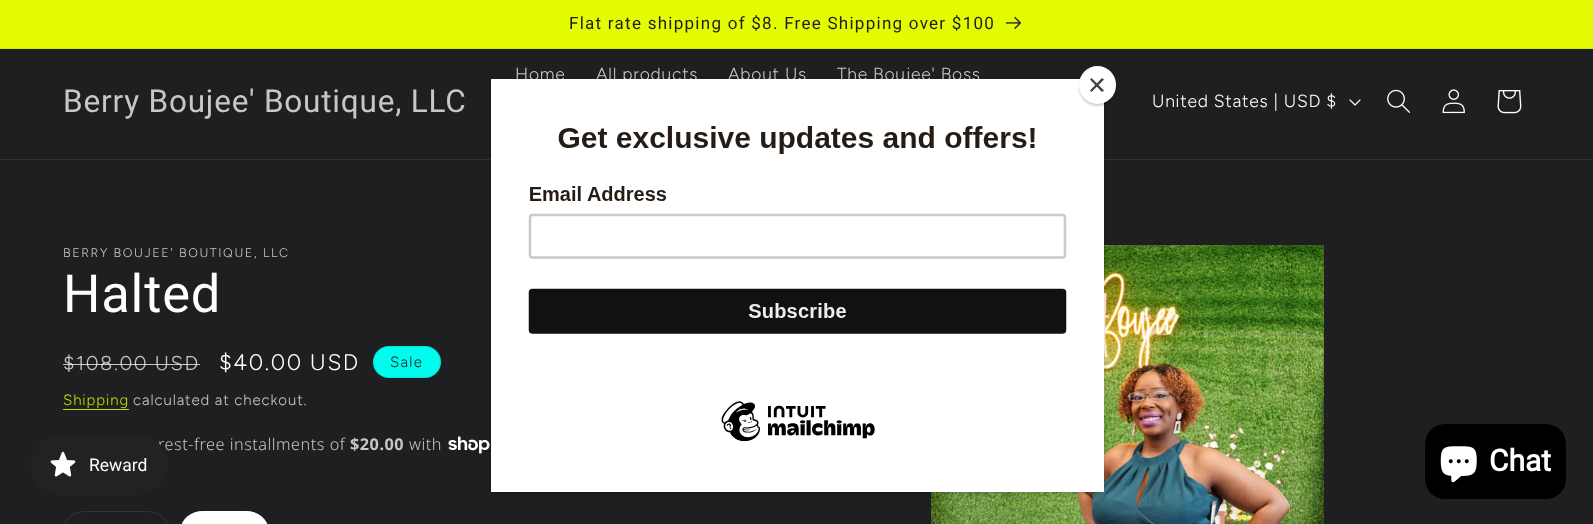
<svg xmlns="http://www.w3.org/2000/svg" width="1593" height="524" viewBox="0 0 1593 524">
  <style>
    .t1 { font: 17.05px Roboto; letter-spacing: 1.25px; fill: #1f1f21; }
    .t2 { font: 300 17.5px Figtree; letter-spacing: 0.75px; fill: #c7c7c8; }
    .t3 { font: 31.5px Roboto; letter-spacing: 0.8px; fill: #c7c7c8; }
    .t4 { font: 300 17.5px Figtree; letter-spacing: 0.75px; fill: #fff; }
    .t5 { font: 300 12.5px Figtree; letter-spacing: 1.6px; fill: #c7c7c8; }
    .t6 { font: 52.5px Roboto; letter-spacing: 0.8px; fill: #fff; }
    .t7 { font: 300 20px Figtree; letter-spacing: 1.6px; fill: #c7c7c8; }
    .t8 { font: 300 22.5px Figtree; letter-spacing: 1.6px; fill: #fff; }
    .t9 { font: 300 15px Figtree; letter-spacing: 1.25px; fill: #1f1f21; }
    .t10 { font: 300 15px Figtree; letter-spacing: 0.9px; fill: #c6db07; }
    .t11 { font: 300 15px Figtree; letter-spacing: 0.9px; fill: #c7c7c8; }
    .t12 { font: 300 16.25px Noto Sans; letter-spacing: 0.5px; fill: #c7c7c8; }
    .t13 { font: bold 16.25px Noto Sans; letter-spacing: 0.5px; fill: #c7c7c8; }
    .t14 { font: 17.5px Roboto; fill: #fff; }
    .t15 { font: bold 30px Roboto; fill: #fff; }
  </style>
  <rect width="100%" height="100%" fill="#1f1f21"/>
  <rect x="0" y="0" width="1593" height="48" fill="#e3fc02"/>
  <rect x="0" y="48" width="1593" height="1" fill="#d3ea04"/>
  <text x="569" y="29" class="t1">Flat rate shipping of $8. Free Shipping over $100</text>
  <image x="1006" y="17" width="15" height="12" href="images/1.png"/>
  <rect x="0" y="159" width="1593" height="1" fill="#313133"/>
  <image x="448" y="436" width="42" height="18" href="images/7.png"/>
  <image x="931" y="245" width="393" height="279" href="images/8.png"/>
  <rect x="491" y="81" width="613" height="413" fill="#00000033" filter="blur(2.5px)"/>
  <text x="515" y="80" class="t2">Home</text>
  <text x="596" y="80" class="t2">All products</text>
  <text x="728" y="80" class="t2">About Us</text>
  <text x="837" y="80" class="t2">The Boujee' Boss</text>
  <image x="491" y="79" width="613" height="413" href="images/2.png"/>
  <rect x="1079" y="69" width="37" height="37" rx="18.5" fill="#00000033" filter="blur(1px)"/>
  <rect x="1079" y="66" width="37" height="38" rx="18.5" fill="#fff"/>
  <path d="M1102 78L1104 79.5L1091.5 92L1090 90.5Z" fill="#414141"/>
  <path d="M1090 79.5L1091.5 78L1104 90.5L1102 92Z" fill="#414141"/>
  <text x="63" y="112" class="t3">Berry Boujee' Boutique, LLC</text>
  <text x="1152" y="107" class="t4">United States | USD $</text>
  <image x="1349" y="99" width="12" height="7" href="images/3.png"/>
  <image x="1387" y="89" width="23" height="24" href="images/4.png"/>
  <image x="1442" y="89" width="23" height="25" href="images/5.png"/>
  <image x="1497" y="90" width="25" height="24" href="images/6.png"/>
  <text x="63" y="257" class="t5">BERRY BOUJEE' BOUTIQUE, LLC</text>
  <text x="63" y="312" class="t6">Halted</text>
  <text x="63" y="370" class="t7">$108.00 USD</text>
  <rect x="63" y="364" width="137" height="1" fill="#ffffffbf"/>
  <text x="219" y="370" class="t8">$40.00 USD</text>
  <rect x="373" y="346" width="68" height="32" rx="16" fill="#00fced"/>
  <rect x="373.5" y="346.5" width="67" height="31" rx="15.5" fill="none" stroke="#1f1f211a"/>
  <text x="390" y="367" class="t9">Sale</text>
  <text x="63" y="405" class="t10">Shipping</text>
  <rect x="63" y="409" width="66" height="1" fill="#c6db07"/>
  <text x="133" y="405" class="t11">calculated at checkout.</text>
  <text x="158" y="450" class="t12">rest-free installments of</text>
  <text x="350" y="450" class="t13">$20.00</text>
  <text x="409" y="450" class="t12">with</text>
  <rect x="63.5" y="511.5" width="105" height="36" rx="22" fill="none" stroke="#353537"/>
  <rect x="181" y="511" width="87" height="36" rx="22.5" fill="#fff"/>
  <rect x="181.5" y="511.5" width="86" height="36" rx="22" fill="none" stroke="#ffffff8c"/>
  <rect x="30" y="435" width="138" height="60" rx="30" fill="#202223"/>
  <image x="50" y="451" width="26" height="26" href="images/9.png"/>
  <text x="89" y="471" class="t14">Reward</text>
  <rect x="1425" y="424" width="141" height="75" rx="20" fill="#000"/>
  <image x="1440" y="446" width="37" height="37" href="images/10.png"/>
  <text x="1489" y="471" class="t15">Chat</text>
</svg>
